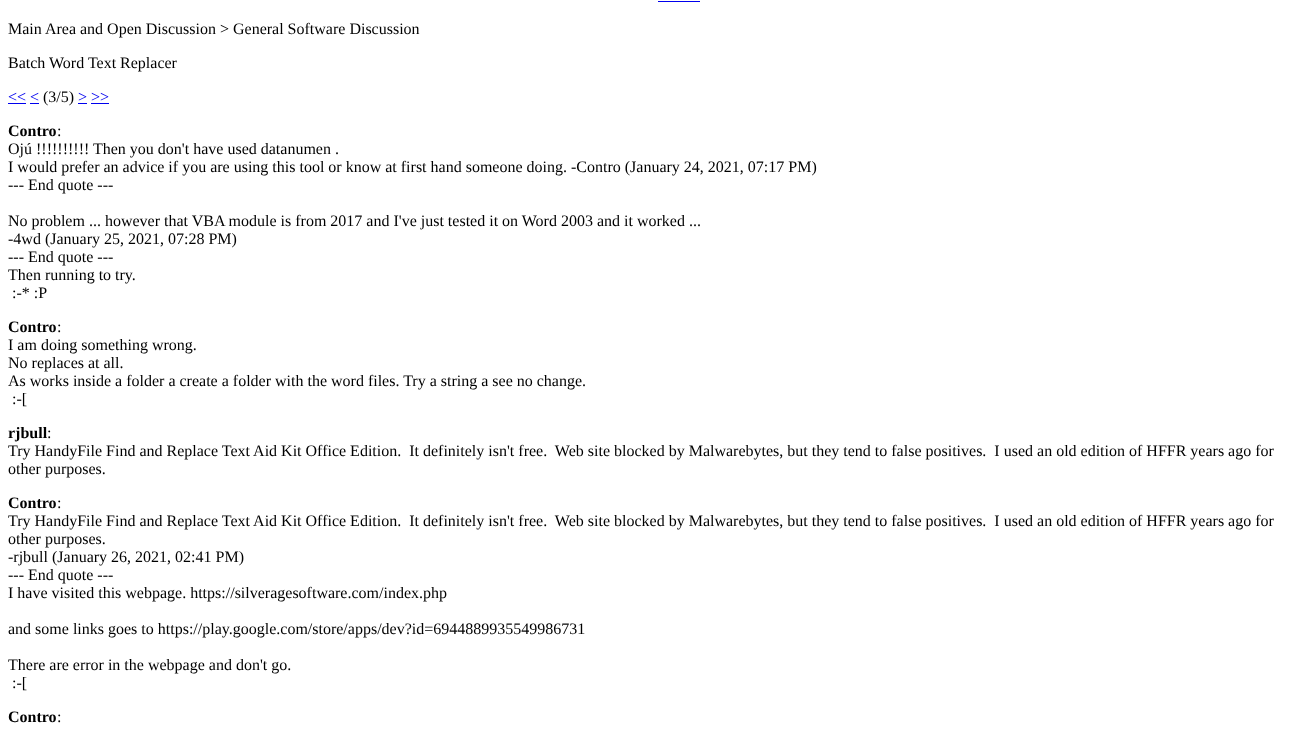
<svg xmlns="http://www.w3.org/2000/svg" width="1313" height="731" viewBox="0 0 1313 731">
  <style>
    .t1 { font: 16px Liberation Serif; fill: #000; }
    .t2 { font: 16px Liberation Serif; fill: #00e; }
    .t3 { font: bold 16px Liberation Serif; fill: #000; }
  </style>
  <rect width="100%" height="100%" fill="#fff"/>
  <rect x="658" y="1" width="42" height="1" fill="#00e"/>
  <text x="8" y="34" class="t1">Main Area and Open Discussion &gt; General Software Discussion</text>
  <text x="8" y="68" class="t1">Batch Word Text Replacer</text>
  <text x="8" y="102" class="t2">&lt;&lt; &lt;</text>
  <rect x="8" y="103" width="18" height="1" fill="#00e"/>
  <text x="43" y="102" class="t1">(3/5)</text>
  <text x="78" y="102" class="t2">&gt; &gt;&gt;</text>
  <rect x="78" y="103" width="9" height="1" fill="#00e"/>
  <rect x="30" y="103" width="9" height="1" fill="#00e"/>
  <rect x="91" y="103" width="18" height="1" fill="#00e"/>
  <text x="8" y="136" class="t3">Contro</text>
  <text x="57" y="136" class="t1">:</text>
  <text x="8" y="154" class="t1">Ojú !!!!!!!!!! Then you don't have used datanumen .</text>
  <text x="8" y="172" class="t1">I would prefer an advice if you are using this tool or know at first hand someone doing. -Contro (January 24, 2021, 07:17 PM)</text>
  <text x="8" y="190" class="t1">--- End quote ---</text>
  <text x="8" y="226" class="t1">No problem ... however that VBA module is from 2017 and I've just tested it on Word 2003 and it worked ...</text>
  <text x="8" y="244" class="t1">-4wd (January 25, 2021, 07:28 PM)</text>
  <text x="8" y="262" class="t1">--- End quote ---</text>
  <text x="8" y="280" class="t1">Then running to try.</text>
  <text x="12" y="298" class="t1">:-* :P</text>
  <text x="8" y="332" class="t3">Contro</text>
  <text x="57" y="332" class="t1">:</text>
  <text x="8" y="350" class="t1">I am doing something wrong.</text>
  <text x="8" y="368" class="t1">No replaces at all.</text>
  <text x="8" y="386" class="t1">As works inside a folder a create a folder with the word files. Try a string a see no change.</text>
  <text x="12" y="404" class="t1">:-[</text>
  <text x="8" y="438" class="t3">rjbull</text>
  <text x="47" y="438" class="t1">:</text>
  <text x="8" y="456" class="t1" xml:space="preserve">Try HandyFile Find and Replace Text Aid Kit Office Edition.  It definitely isn't free.  Web site blocked by Malwarebytes, but they tend to false positives.  I used an old edition of HFFR years ago for</text>
  <text x="8" y="474" class="t1">other purposes.</text>
  <text x="8" y="508" class="t3">Contro</text>
  <text x="57" y="508" class="t1">:</text>
  <text x="8" y="526" class="t1" xml:space="preserve">Try HandyFile Find and Replace Text Aid Kit Office Edition.  It definitely isn't free.  Web site blocked by Malwarebytes, but they tend to false positives.  I used an old edition of HFFR years ago for</text>
  <text x="8" y="544" class="t1">other purposes.</text>
  <text x="8" y="562" class="t1">-rjbull (January 26, 2021, 02:41 PM)</text>
  <text x="8" y="580" class="t1">--- End quote ---</text>
  <text x="8" y="598" class="t1">I have visited this webpage. https://silveragesoftware.com/index.php</text>
  <text x="8" y="634" class="t1">and some links goes to https://play.google.com/store/apps/dev?id=6944889935549986731</text>
  <text x="8" y="670" class="t1">There are error in the webpage and don't go.</text>
  <text x="12" y="688" class="t1">:-[</text>
  <text x="8" y="722" class="t3">Contro</text>
  <text x="57" y="722" class="t1">:</text>
</svg>
